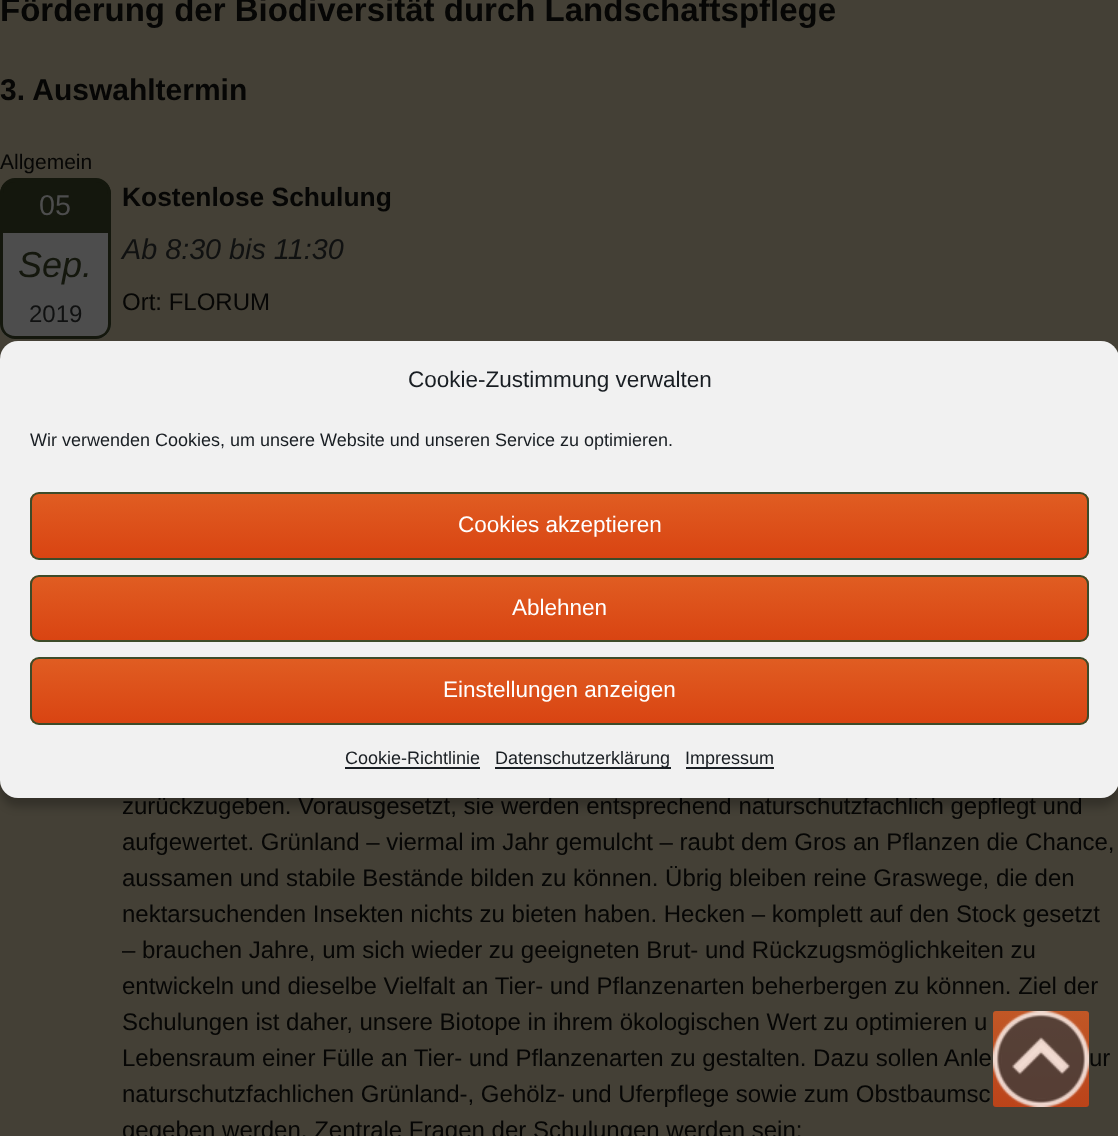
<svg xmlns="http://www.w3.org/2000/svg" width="1118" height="1136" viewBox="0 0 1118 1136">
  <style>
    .t1 { font: bold 33px Liberation Sans; fill: #060605; }
    .t2 { font: bold 30px Liberation Sans; fill: #060605; }
    .t3 { font: 21px Liberation Sans; fill: #060605; }
    .t4 { font: 28.75px Liberation Sans; fill: #4d4d4d; }
    .t5 { font: italic 36px Liberation Sans; fill: #14170d; }
    .t6 { font: 24px Liberation Sans; fill: #101111; }
    .t7 { font: bold 26.4px Liberation Sans; fill: #060605; }
    .t8 { font: italic 28.75px Liberation Sans; fill: #101111; }
    .t9 { font: 24px Liberation Sans; fill: #060605; }
    .t10 { font: 22.5px Liberation Sans; fill: #191e23; }
    .t11 { font: 18px Liberation Sans; fill: #191e23; }
    .t12 { font: 22.5px Liberation Sans; fill: #fff; }
  </style>
  <defs>
    <clipPath id="clip1"><rect x="30" y="492" width="1059" height="68" rx="9"/></clipPath>
    <linearGradient id="g1" gradientUnits="userSpaceOnUse" x1="560" y1="493" x2="560" y2="558"><stop offset="0" stop-color="#e05d22"/><stop offset="1" stop-color="#d94412"/></linearGradient>
    <clipPath id="clip2"><rect x="30" y="575" width="1059" height="67" rx="9"/></clipPath>
    <linearGradient id="g2" gradientUnits="userSpaceOnUse" x1="560" y1="576" x2="560" y2="640"><stop offset="0" stop-color="#e05d22"/><stop offset="1" stop-color="#d94412"/></linearGradient>
    <clipPath id="clip3"><rect x="30" y="657" width="1059" height="68" rx="9"/></clipPath>
    <linearGradient id="g3" gradientUnits="userSpaceOnUse" x1="560" y1="658" x2="560" y2="723"><stop offset="0" stop-color="#e05d22"/><stop offset="1" stop-color="#d94412"/></linearGradient>
    <linearGradient id="g4" gradientUnits="userSpaceOnUse" x1="1041" y1="1011" x2="1041" y2="1107"><stop offset="0" stop-color="#e05d22" stop-opacity="0.8"/><stop offset="1" stop-color="#d94412" stop-opacity="0.8"/></linearGradient>
  </defs>
  <rect width="100%" height="100%" fill="#444036"/>
  <text x="0" y="21" class="t1">Förderung der Biodiversität durch Landschaftspflege</text>
  <text x="0" y="100" class="t2">3. Auswahltermin</text>
  <text x="0" y="169" class="t3">Allgemein</text>
  <path d="M15 179H96C104.5 179 111 185.5 111 194V233H0V194C0 185.5 6.5 179 15 179Z" fill="#14170d"/>
  <path d="M15 178H96C104 178 111 185 111 194V232H0V194C0 185 7 178 15 178ZM15 182H96C103 182 108 187 108 194V232H3V194C3 187 8 182 15 182Z" fill="#14170d" fill-rule="evenodd"/>
  <text x="39" y="215" class="t4">05</text>
  <path d="M0 233H111V324C111 332.5 104.5 339 96 339H15C6.5 339 0 332.5 0 324Z" fill="#4d4d4d"/>
  <path d="M0 232H111V324C111 332 104 339 96 339H15C7 339 0 332 0 324ZM3 232H108V324C108 331 103 336 96 336H15C8 336 3 331 3 324Z" fill="#14170d" fill-rule="evenodd"/>
  <text x="18" y="277" class="t5">Sep.</text>
  <text x="29" y="322" class="t6">2019</text>
  <text x="122" y="206" class="t7">Kostenlose Schulung</text>
  <text x="122" y="259" class="t8">Ab 8:30 bis 11:30</text>
  <text x="122" y="310" class="t9">Ort: FLORUM</text>
  <text x="122" y="814" class="t9">zurückzugeben. Vorausgesetzt, sie werden entsprechend naturschutzfachlich gepflegt und</text>
  <text x="122" y="850" class="t9">aufgewertet. Grünland – viermal im Jahr gemulcht – raubt dem Gros an Pflanzen die Chance,</text>
  <text x="122" y="886" class="t9">aussamen und stabile Bestände bilden zu können. Übrig bleiben reine Graswege, die den</text>
  <text x="122" y="922" class="t9">nektarsuchenden Insekten nichts zu bieten haben. Hecken – komplett auf den Stock gesetzt</text>
  <text x="122" y="958" class="t9">– brauchen Jahre, um sich wieder zu geeigneten Brut- und Rückzugsmöglichkeiten zu</text>
  <text x="122" y="994" class="t9">entwickeln und dieselbe Vielfalt an Tier- und Pflanzenarten beherbergen zu können. Ziel der</text>
  <text x="122" y="1030" class="t9">Schulungen ist daher, unsere Biotope in ihrem ökologischen Wert zu optimieren u</text>
  <text x="122" y="1066" class="t9">Lebensraum einer Fülle an Tier- und Pflanzenarten zu gestalten. Dazu sollen Anle</text>
  <text x="1089" y="1066" class="t9">ur</text>
  <text x="122" y="1102" class="t9">naturschutzfachlichen Grünland-, Gehölz- und Uferpflege sowie zum Obstbaumsc</text>
  <text x="122" y="1138" class="t9">gegeben werden. Zentrale Fragen der Schulungen werden sein:</text>
  <rect x="0" y="350" width="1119" height="457" rx="18" fill="#0000003b" filter="blur(4.5px)"/>
  <rect x="0" y="341" width="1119" height="457" rx="18" fill="#f1f1f1"/>
  <text x="408" y="387" class="t10">Cookie-Zustimmung verwalten</text>
  <text x="30" y="446" class="t11">Wir verwenden Cookies, um unsere Website und unseren Service zu optimieren.</text>
  <g clip-path="url(#clip1)">
    <rect x="30" y="494" width="1059" height="64" fill="url(#g1)"/>
  </g>
  <rect x="31" y="493" width="1057" height="66" rx="8" fill="none" stroke="#3d4b29" stroke-width="2"/>
  <text x="458" y="532" class="t12">Cookies akzeptieren</text>
  <g clip-path="url(#clip2)">
    <rect x="30" y="576" width="1059" height="65" fill="url(#g2)"/>
  </g>
  <rect x="31" y="576" width="1057" height="65" rx="8" fill="none" stroke="#3d4b29" stroke-width="2"/>
  <text x="512" y="615" class="t12">Ablehnen</text>
  <g clip-path="url(#clip3)">
    <rect x="30" y="659" width="1059" height="64" fill="url(#g3)"/>
  </g>
  <rect x="31" y="658" width="1057" height="66" rx="8" fill="none" stroke="#3d4b29" stroke-width="2"/>
  <text x="443" y="697" class="t12">Einstellungen anzeigen</text>
  <text x="345" y="764" class="t11">Cookie-Richtlinie</text>
  <rect x="345" y="767" width="135" height="2" fill="#191e23"/>
  <rect x="495" y="767" width="176" height="2" fill="#191e23"/>
  <text x="495" y="764" class="t11">Datenschutzerklärung</text>
  <rect x="686" y="767" width="88" height="2" fill="#191e23"/>
  <text x="685" y="764" class="t11">Impressum</text>
  <rect x="993" y="1011" width="96" height="96" rx="3" fill="url(#g4)"/>
  <image x="993" y="1011" width="96" height="96" href="images/1.png"/>
</svg>
